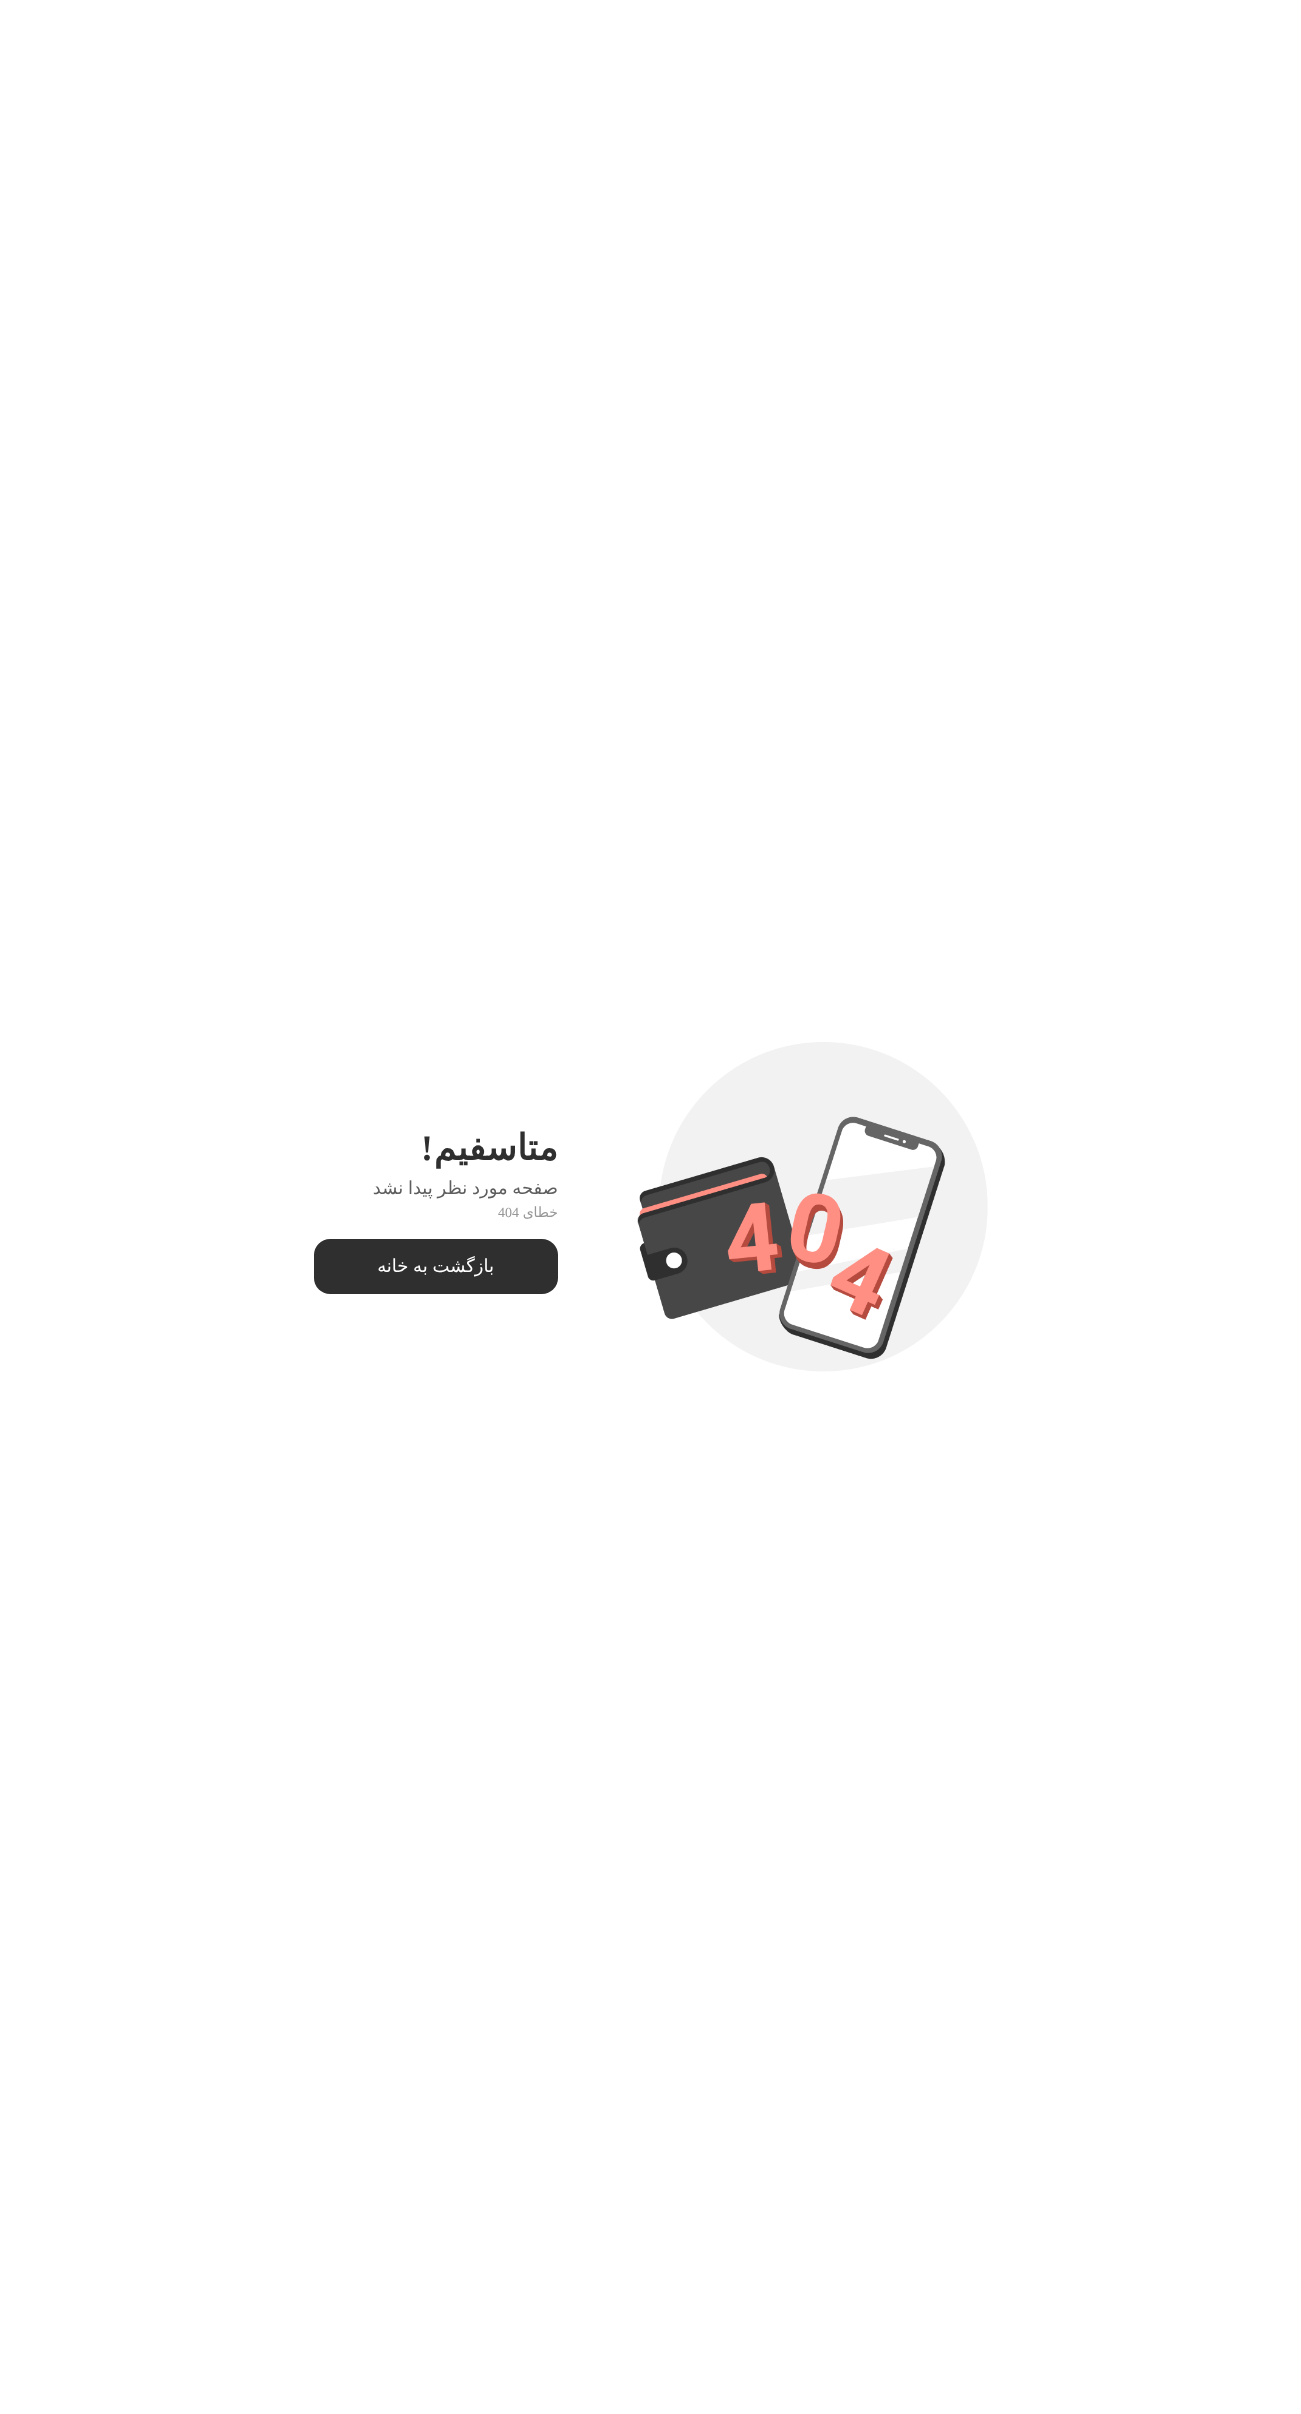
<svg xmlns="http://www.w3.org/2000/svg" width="1301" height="2414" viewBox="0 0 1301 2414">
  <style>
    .t1 { font: bold 36px DejaVu Sans; direction: rtl; fill: #2f2f2f; }
    .t2 { font: bold 36px Liberation Serif; direction: rtl; fill: #2f2f2f; }
    .t3 { font: 18px DejaVu Sans; direction: rtl; fill: #5e5e5e; }
    .t4 { font: 14px DejaVu Sans; direction: rtl; fill: #979797; }
    .t5 { font: 14px Liberation Serif; fill: #979797; }
    .t6 { font: 18px DejaVu Sans; direction: rtl; fill: #fff; }
  </style>
  <rect width="100%" height="100%" fill="#fff"/>
  <image x="637" y="1042" width="351" height="330" href="images/1.png"/>
  <text x="558" y="1160" class="t1">متاسفیم</text>
  <text x="433" y="1160" class="t2">!</text>
  <text x="558" y="1194" word-spacing="-1" class="t3">صفحه مورد نظر پیدا نشد</text>
  <text x="558" y="1217" class="t4">خطای</text>
  <text x="498" y="1217" class="t5">404</text>
  <rect x="314" y="1239" width="244" height="55" rx="16" fill="#2f2f2f"/>
  <text x="494" y="1272" word-spacing="-1" class="t6">بازگشت به خانه</text>
</svg>
